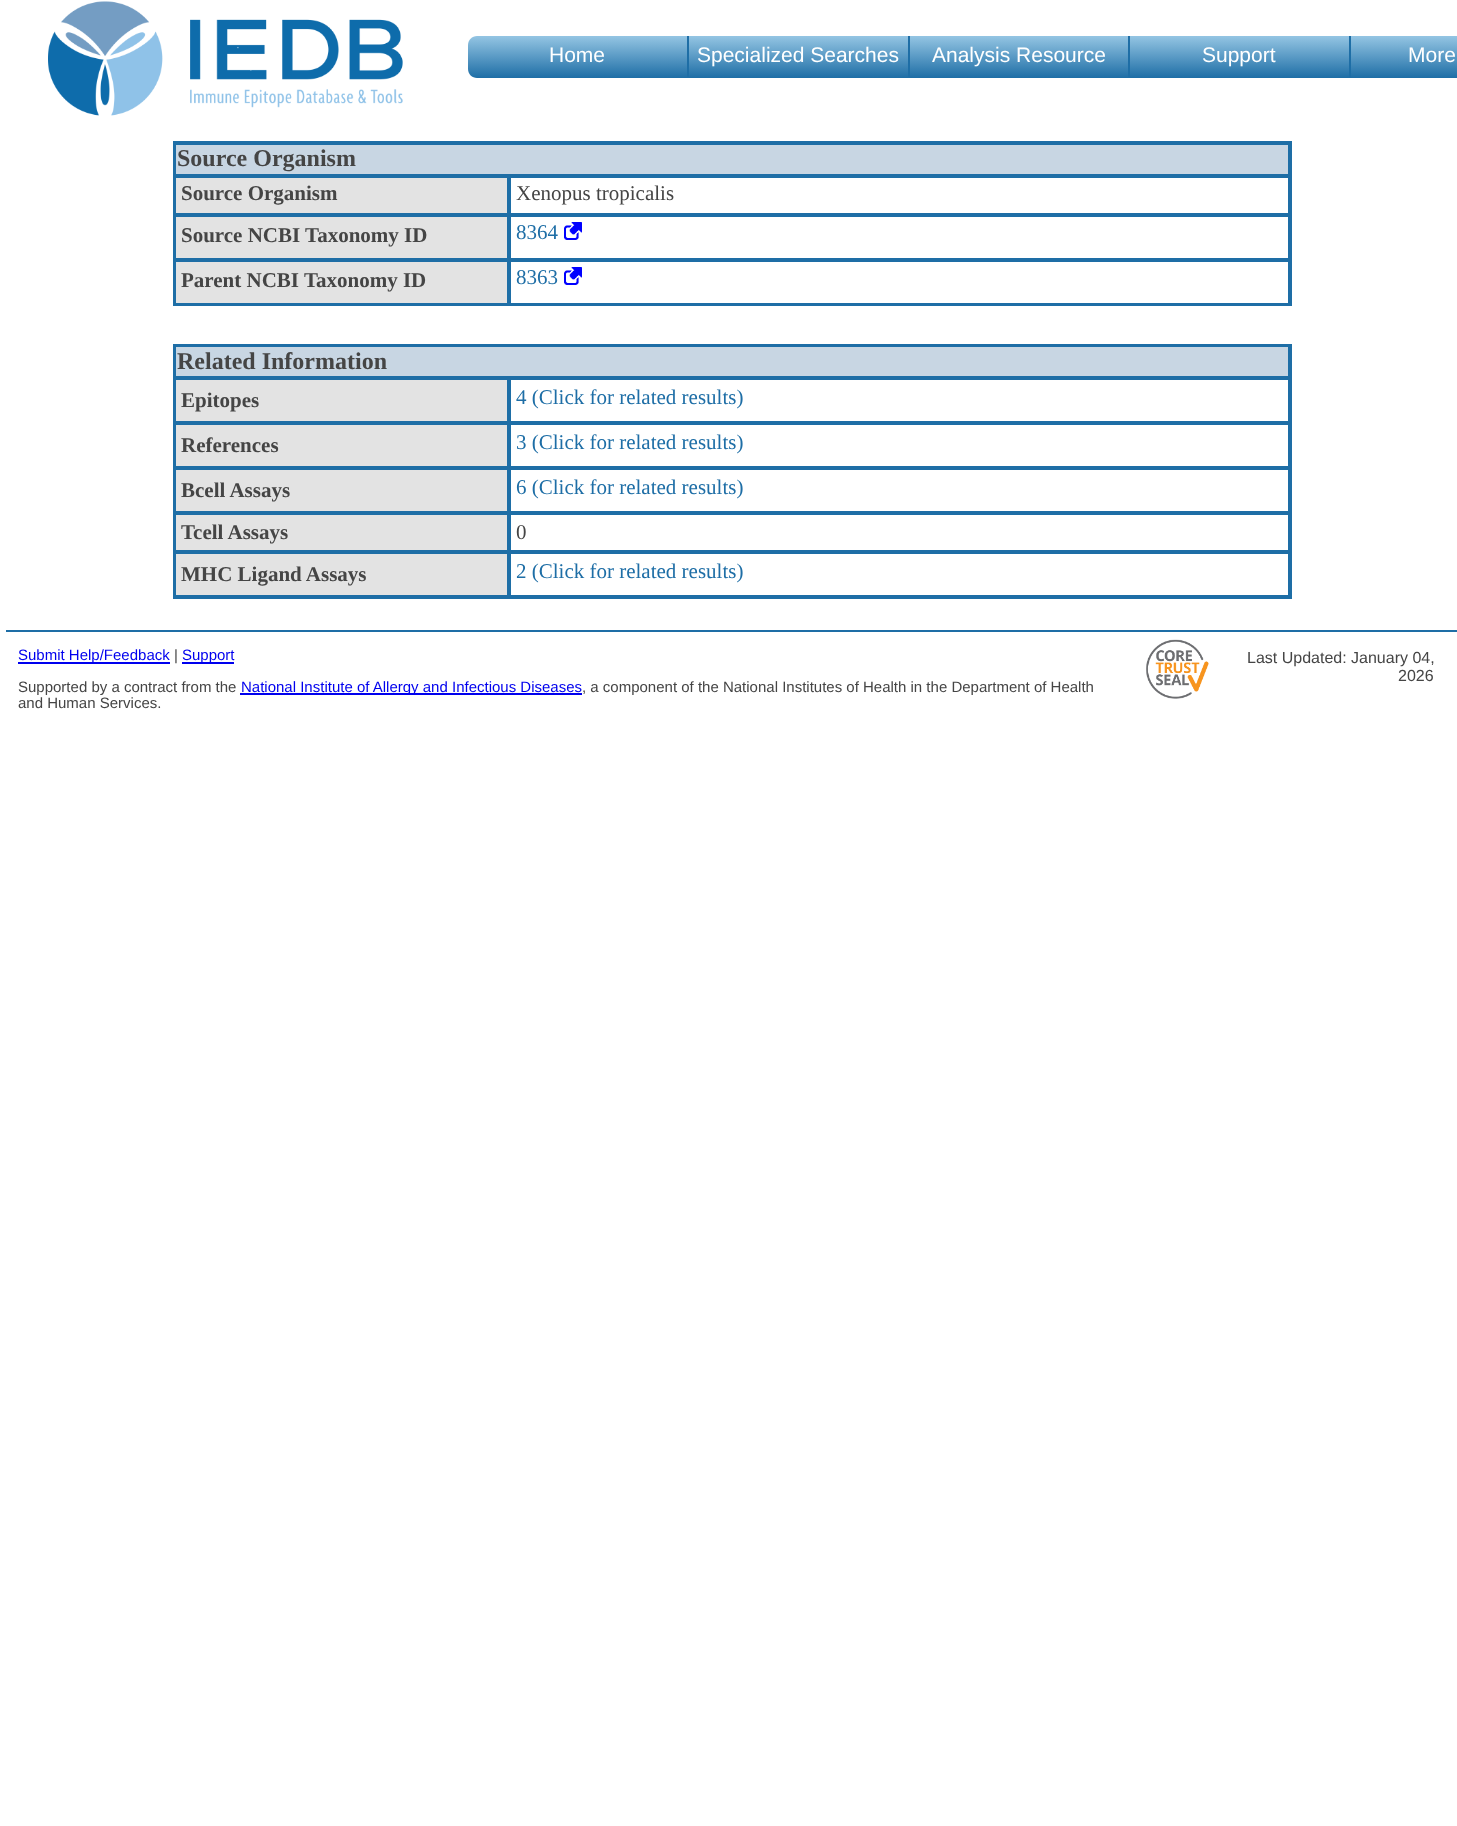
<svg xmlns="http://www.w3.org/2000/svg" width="1457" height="1826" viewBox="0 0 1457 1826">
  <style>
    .t1 { font: 21px Liberation Sans; fill: #fff; }
    .t2 { font: bold 24px Liberation Serif; fill: #454545; }
    .t3 { font: bold 21px Liberation Serif; fill: #454545; }
    .t4 { font: 21px Liberation Serif; fill: #454545; }
    .t5 { font: 21px Liberation Serif; fill: #1e6ea6; }
    .t6 { font: 15px Liberation Sans; fill: #00e; }
    .t7 { font: 15px Liberation Sans; fill: #454545; }
    .t8 { font: 16px Liberation Sans; fill: #454545; }
  </style>
  <defs>
    <linearGradient id="g1" gradientUnits="userSpaceOnUse" x1="1071" y1="78" x2="1071" y2="36"><stop offset="0" stop-color="#1e6ea6"/><stop offset="1" stop-color="#94c5e3"/></linearGradient>
  </defs>
  <rect width="100%" height="100%" fill="#fff"/>
  <image x="48" y="1" width="355" height="115" href="images/1.png"/>
  <path d="M477 36H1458V78H477C472 78 468 74 468 69V45C468 40 472 36 477 36Z" fill="url(#g1)"/>
  <rect x="687" y="36" width="2" height="41" fill="#1e6ea6"/>
  <text x="549" y="62" class="t1">Home</text>
  <rect x="908" y="36" width="2" height="41" fill="#1e6ea6"/>
  <text x="697" y="62" class="t1">Specialized Searches</text>
  <rect x="1128" y="36" width="2" height="41" fill="#1e6ea6"/>
  <text x="932" y="62" class="t1">Analysis Resource</text>
  <rect x="1349" y="36" width="2" height="41" fill="#1e6ea6"/>
  <text x="1202" y="62" class="t1">Support</text>
  <text x="1408" y="62" class="t1">More</text>
  <rect x="174" y="142" width="1117" height="163" fill="none" stroke="#1e6ea6" stroke-width="2"/>
  <rect x="175" y="144" width="1114" height="31" fill="#c8d6e3" stroke="#1e6ea6" stroke-width="2"/>
  <text x="177" y="166" class="t2">Source Organism</text>
  <rect x="175" y="177" width="333" height="37" fill="#e3e3e3" stroke="#1e6ea6" stroke-width="2"/>
  <text x="181" y="200" class="t3">Source Organism</text>
  <rect x="510" y="177" width="779" height="37" fill="none" stroke="#1e6ea6" stroke-width="2"/>
  <text x="516" y="200" class="t4">Xenopus tropicalis</text>
  <rect x="175" y="216" width="333" height="43" fill="#e3e3e3" stroke="#1e6ea6" stroke-width="2"/>
  <text x="181" y="242" class="t3">Source NCBI Taxonomy ID</text>
  <rect x="510" y="216" width="779" height="43" fill="none" stroke="#1e6ea6" stroke-width="2"/>
  <text x="516" y="239" class="t5">8364</text>
  <image x="564" y="222" width="18" height="18" href="images/2.png"/>
  <rect x="175" y="261" width="333" height="43" fill="#e3e3e3" stroke="#1e6ea6" stroke-width="2"/>
  <text x="181" y="287" class="t3">Parent NCBI Taxonomy ID</text>
  <rect x="510" y="261" width="779" height="43" fill="none" stroke="#1e6ea6" stroke-width="2"/>
  <text x="516" y="284" class="t5">8363</text>
  <image x="564" y="267" width="18" height="18" href="images/2.png"/>
  <rect x="174" y="345" width="1117" height="253" fill="none" stroke="#1e6ea6" stroke-width="2"/>
  <rect x="175" y="346" width="1114" height="31" fill="#c8d6e3" stroke="#1e6ea6" stroke-width="2"/>
  <text x="177" y="369" class="t2">Related Information</text>
  <rect x="175" y="379" width="333" height="43" fill="#e3e3e3" stroke="#1e6ea6" stroke-width="2"/>
  <text x="181" y="407" class="t3">Epitopes</text>
  <rect x="510" y="379" width="779" height="43" fill="none" stroke="#1e6ea6" stroke-width="2"/>
  <text x="516" y="404" class="t5">4 (Click for related results)</text>
  <rect x="175" y="424" width="333" height="43" fill="#e3e3e3" stroke="#1e6ea6" stroke-width="2"/>
  <text x="181" y="452" class="t3">References</text>
  <rect x="510" y="424" width="779" height="43" fill="none" stroke="#1e6ea6" stroke-width="2"/>
  <text x="516" y="449" class="t5">3 (Click for related results)</text>
  <rect x="175" y="469" width="333" height="43" fill="#e3e3e3" stroke="#1e6ea6" stroke-width="2"/>
  <text x="181" y="497" class="t3">Bcell Assays</text>
  <rect x="510" y="469" width="779" height="43" fill="none" stroke="#1e6ea6" stroke-width="2"/>
  <text x="516" y="494" class="t5">6 (Click for related results)</text>
  <rect x="175" y="514" width="333" height="37" fill="#e3e3e3" stroke="#1e6ea6" stroke-width="2"/>
  <text x="181" y="539" class="t3">Tcell Assays</text>
  <rect x="510" y="514" width="779" height="37" fill="none" stroke="#1e6ea6" stroke-width="2"/>
  <text x="516" y="539" class="t4">0</text>
  <rect x="175" y="553" width="333" height="43" fill="#e3e3e3" stroke="#1e6ea6" stroke-width="2"/>
  <text x="181" y="581" class="t3">MHC Ligand Assays</text>
  <rect x="510" y="553" width="779" height="43" fill="none" stroke="#1e6ea6" stroke-width="2"/>
  <text x="516" y="578" class="t5">2 (Click for related results)</text>
  <rect x="6" y="630" width="1451" height="2" fill="#1e6ea6"/>
  <rect x="18" y="662" width="152" height="2" fill="#00e"/>
  <text x="18" y="660" class="t6">Submit Help/Feedback</text>
  <text x="174" y="660" class="t7">|</text>
  <rect x="182" y="662" width="52" height="2" fill="#00e"/>
  <text x="182" y="660" class="t6">Support</text>
  <image x="1146" y="639" width="63" height="60" href="images/3.png"/>
  <text x="1247" y="663" class="t8">Last Updated: January 04,</text>
  <text x="1398" y="681" class="t8">2026</text>
  <text x="18" y="692" class="t7">Supported by a contract from the</text>
  <rect x="240" y="693" width="342" height="2" fill="#00e"/>
  <text x="241" y="692" class="t6">National Institute of Allergy and Infectious Diseases</text>
  <text x="582" y="692" class="t7">, a component of the National Institutes of Health in the Department of Health</text>
  <text x="18" y="708" class="t7">and Human Services.</text>
</svg>
